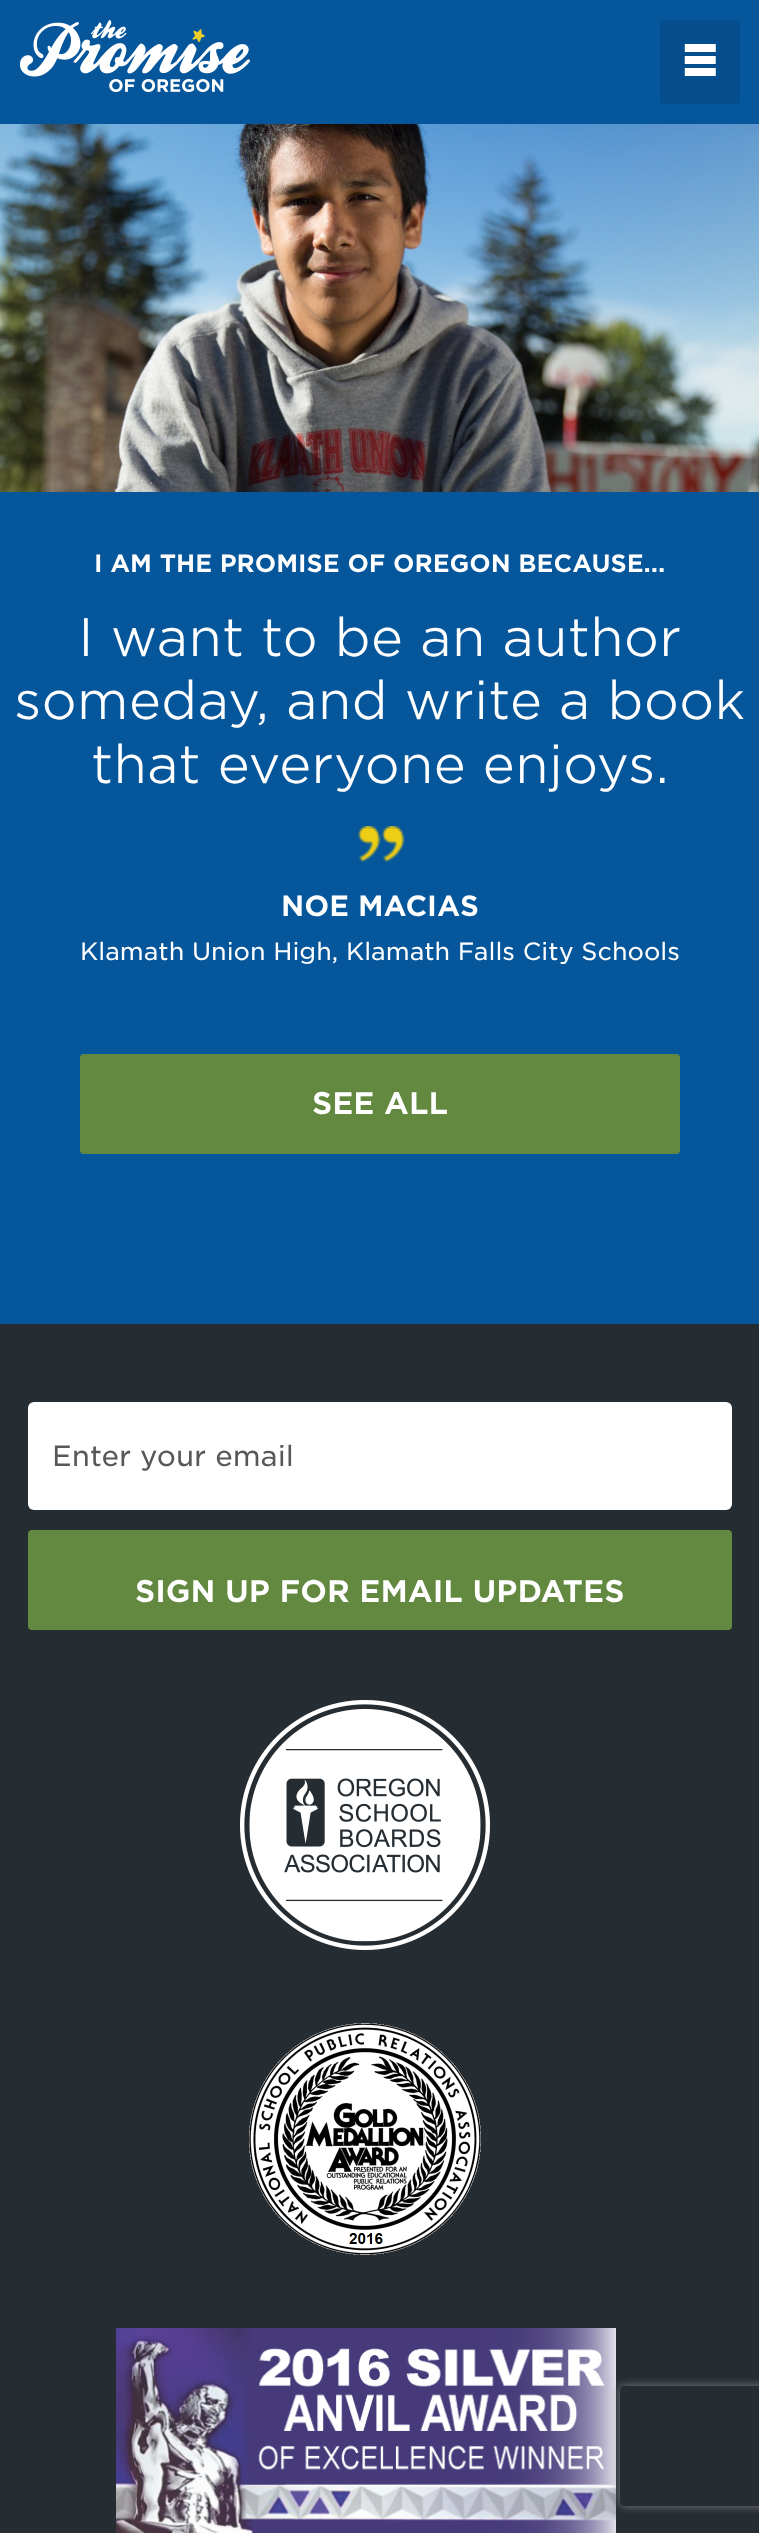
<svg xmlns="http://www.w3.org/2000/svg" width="759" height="2533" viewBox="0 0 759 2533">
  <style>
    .t1 { font: 24px 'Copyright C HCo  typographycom'; fill: #fff; }
    .t2 { font: 300 52px 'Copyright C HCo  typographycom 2'; fill: #fff; }
    .t3 { font: 28px 'Copyright C HCo  typographycom'; fill: #fff; }
    .t4 { font: 300 24px 'Copyright C HCo  typographycom'; fill: #fff; }
    .t5 { font: 30px 'Copyright C HCo  typographycom'; fill: #fff; }
    .t6 { font: 300 28px 'Copyright C HCo  typographycom'; fill: #585858; }
  </style>
  <defs>
    <clipPath id="clip1"><path d="M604 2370H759V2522H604ZM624 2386H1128C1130 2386 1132 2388 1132 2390V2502C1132 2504 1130 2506 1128 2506H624C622 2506 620 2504 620 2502V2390C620 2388 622 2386 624 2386Z" clip-rule="evenodd"/></clipPath>
  </defs>
  <rect width="100%" height="100%" fill="#06569b"/>
  <image x="20" y="20" width="230" height="72" href="images/1.png"/>
  <rect x="660" y="20" width="80" height="84" rx="4" fill="#054e8d"/>
  <image x="684" y="44" width="32" height="32" href="images/2.png"/>
  <image x="0" y="124" width="759" height="368" href="images/3.png"/>
  <text x="94" y="572" class="t1">I AM THE PROMISE OF OREGON BECAUSE...</text>
  <text x="78" y="656" class="t2">I want to be an author</text>
  <text x="14" y="719" class="t2">someday, and write a book</text>
  <text x="91" y="783" class="t2">that everyone enjoys.</text>
  <image x="358" y="826" width="46" height="36" href="images/4.png"/>
  <text x="281" y="916" class="t3">NOE MACIAS</text>
  <text x="80" y="960" class="t4">Klamath Union High, Klamath Falls City Schools</text>
  <rect x="80" y="1054" width="600" height="100" rx="4" fill="#638941"/>
  <text x="312" y="1114" class="t5">SEE ALL</text>
  <rect x="0" y="1324" width="759" height="1209" fill="#252c32"/>
  <rect x="28" y="1402" width="704" height="108" rx="6" fill="#fff"/>
  <text x="52" y="1466" class="t6">Enter your email</text>
  <rect x="28" y="1530" width="704" height="100" rx="4" fill="#638941"/>
  <text x="135" y="1602" class="t5">SIGN UP FOR EMAIL UPDATES</text>
  <image x="240" y="1700" width="250" height="250" href="images/5.png"/>
  <image x="249" y="2023" width="232" height="232" href="images/6.png"/>
  <image x="116" y="2328" width="500" height="205" href="images/7.png"/>
  <g clip-path="url(#clip1)">
    <rect x="620" y="2386" width="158" height="120" rx="4" fill="#808080" filter="blur(5px)"/>
  </g>
</svg>
